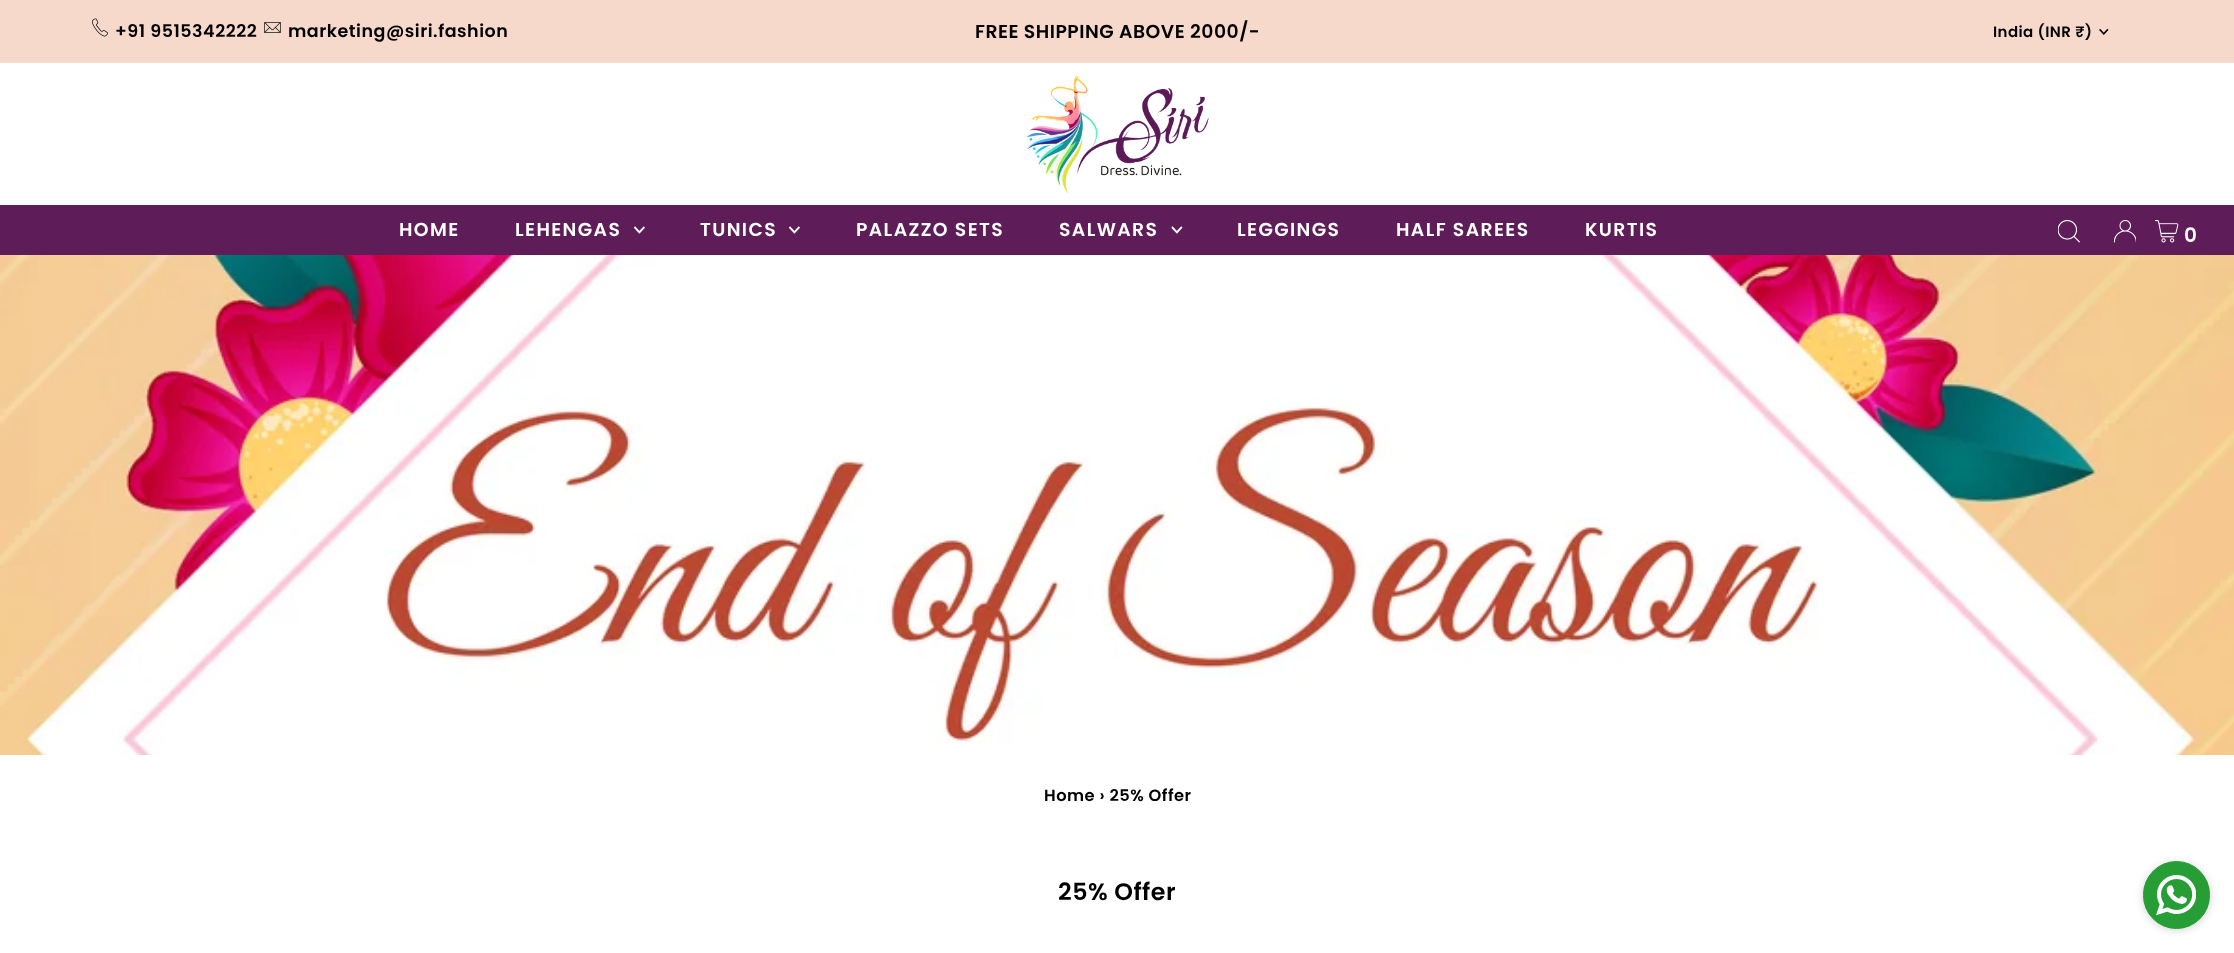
<svg xmlns="http://www.w3.org/2000/svg" width="2234" height="953" viewBox="0 0 2234 953">
  <style>
    .t1 { font: 600 17.5px Poppins; letter-spacing: 0.5px; fill: #000; }
    .t2 { font: 600 18.75px Poppins; letter-spacing: 0.5px; fill: #000; }
    .t3 { font: 600 15px Poppins; letter-spacing: 0.4px; fill: #000; }
    .t4 { font: 600 18.75px Poppins; letter-spacing: 1.4px; fill: #fff; }
    .t5 { font: 600 20px Poppins; letter-spacing: 0.5px; fill: #fff; }
    .t6 { font: 600 16.25px Poppins; letter-spacing: 0.5px; fill: #000; }
    .t7 { font: 600 23.75px Poppins; letter-spacing: 0.5px; fill: #000; }
  </style>
  <rect width="100%" height="100%" fill="#fff"/>
  <rect x="0" y="0" width="2234" height="63" fill="#f7d9cb"/>
  <image x="92" y="18" width="16" height="19" href="images/1.png"/>
  <text x="115" y="37" class="t1">+91 9515342222</text>
  <image x="264" y="22" width="17" height="11" href="images/2.png"/>
  <text x="288" y="37" class="t1">marketing@siri.fashion</text>
  <text x="975" y="38" class="t2">FREE SHIPPING ABOVE 2000/-</text>
  <text x="1993" y="37" class="t3">India (INR ₹)</text>
  <image x="2099" y="29" width="10" height="6" href="images/3.png"/>
  <image x="1026" y="75" width="183" height="119" href="images/4.png"/>
  <rect x="0" y="205" width="2234" height="50" fill="#5e1d59"/>
  <text x="399" y="236" class="t4">HOME</text>
  <text x="515" y="236" class="t4">LEHENGAS</text>
  <image x="634" y="226" width="11" height="8" href="images/5.png"/>
  <text x="700" y="236" class="t4">TUNICS</text>
  <image x="789" y="226" width="11" height="8" href="images/5.png"/>
  <text x="856" y="236" class="t4">PALAZZO SETS</text>
  <text x="1059" y="236" class="t4">SALWARS</text>
  <image x="1171" y="226" width="12" height="8" href="images/6.png"/>
  <text x="1237" y="236" class="t4">LEGGINGS</text>
  <text x="1396" y="236" class="t4">HALF SAREES</text>
  <text x="1585" y="236" class="t4">KURTIS</text>
  <image x="2058" y="220" width="22" height="23" href="images/7.png"/>
  <image x="2114" y="220" width="22" height="23" href="images/8.png"/>
  <image x="2155" y="220" width="24" height="23" href="images/9.png"/>
  <text x="2184" y="242" class="t5">0</text>
  <image x="0" y="255" width="2234" height="500" href="images/10.png"/>
  <text x="1044" y="801" class="t6">Home › 25% Offer</text>
  <text x="1058" y="900" class="t7">25% Offer</text>
  <rect x="2143" y="863" width="67" height="67" rx="33.5" fill="#1b1b1b33" filter="blur(4px)"/>
  <rect x="2143.5" y="861.5" width="66" height="67" rx="33" fill="#269d35" stroke="#269d35"/>
  <image x="2156" y="875" width="40" height="40" href="images/11.png"/>
</svg>
